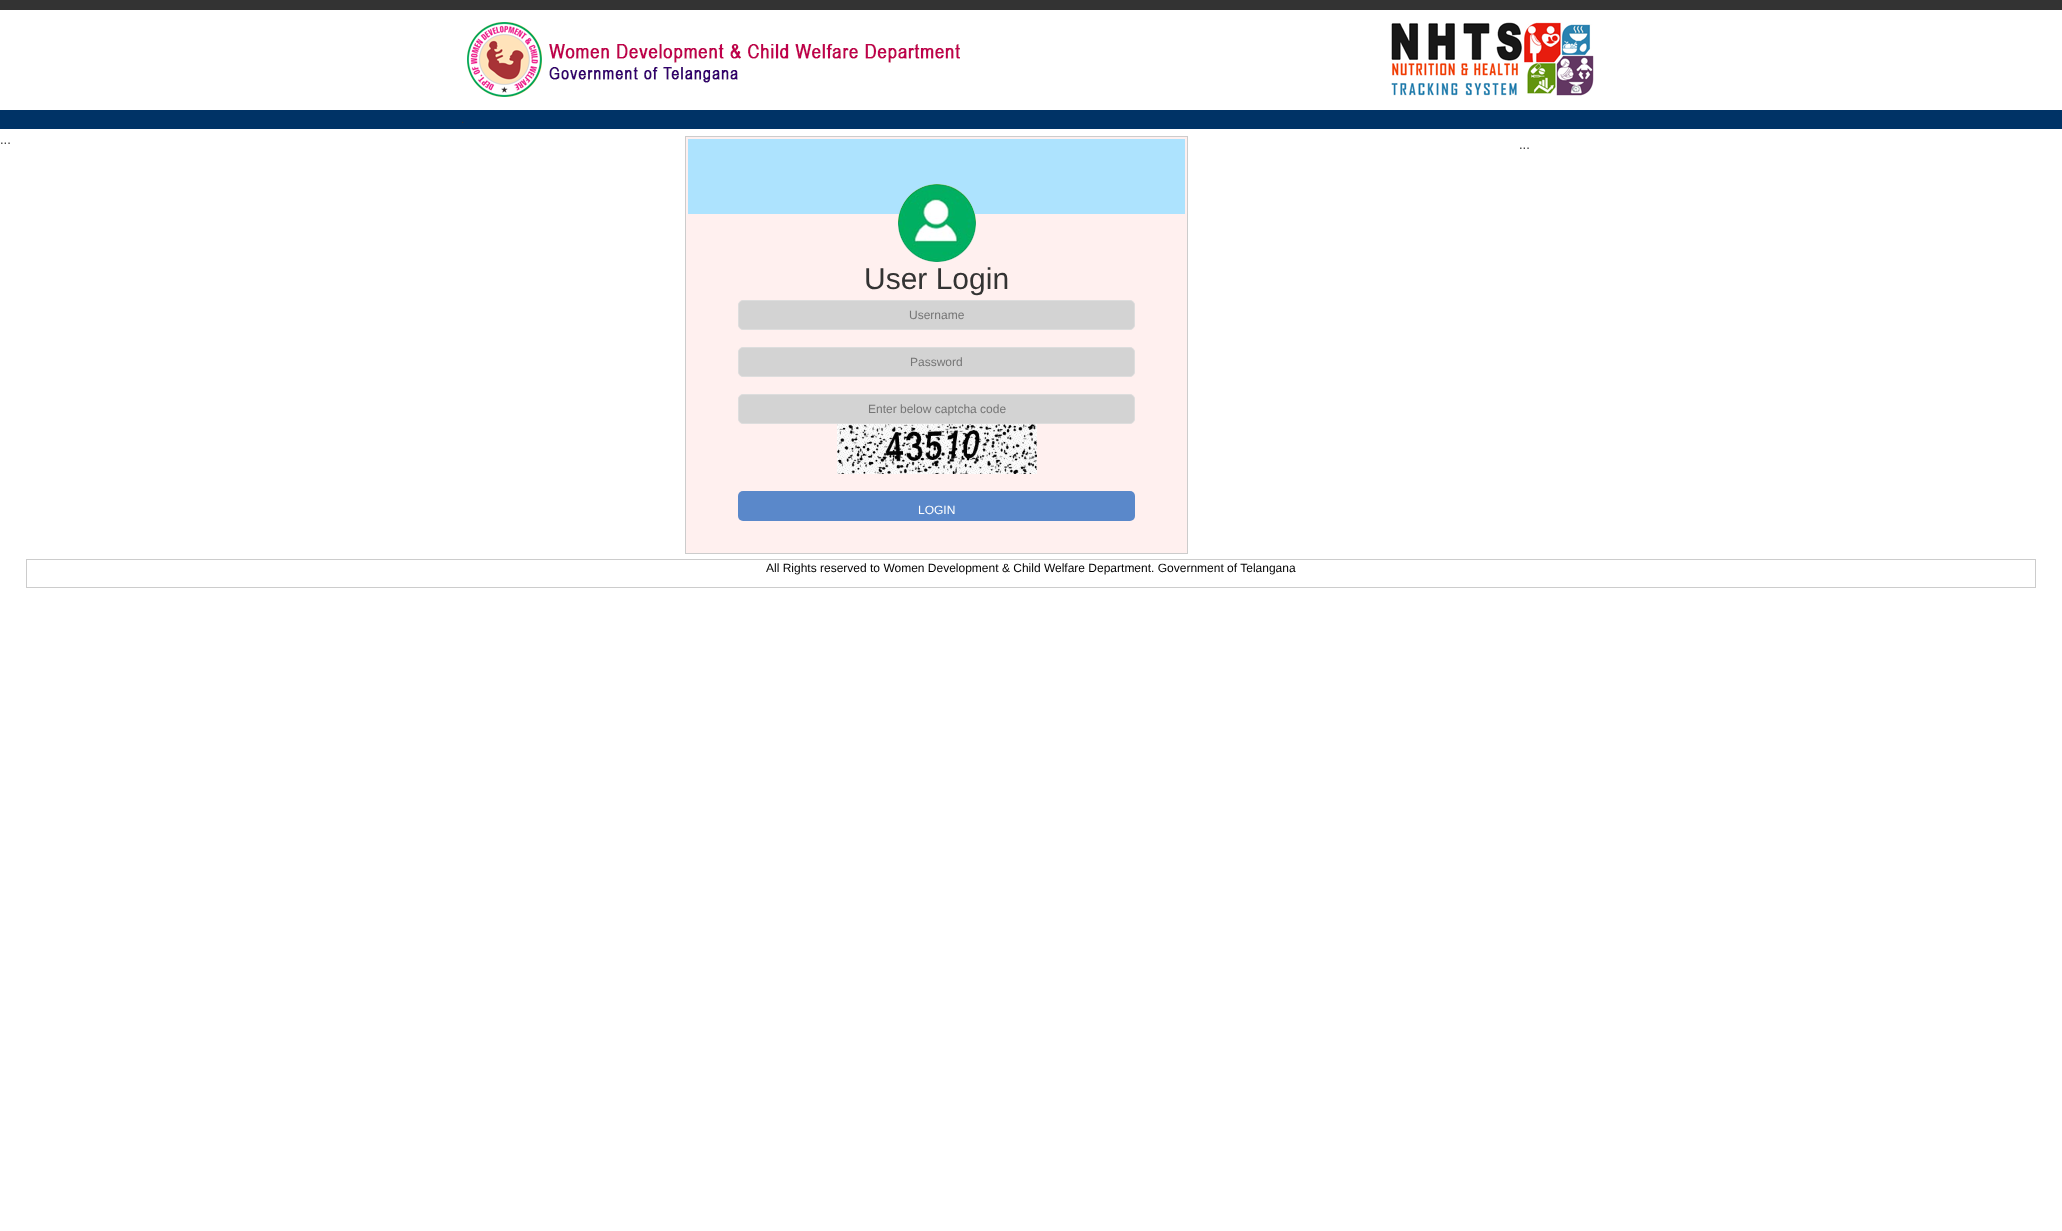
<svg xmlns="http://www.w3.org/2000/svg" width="2062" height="1231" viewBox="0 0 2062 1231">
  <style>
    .t1 { font: 13px Roboto Condensed; fill: #333; }
    .t2 { font: 13px Liberation Sans; fill: #333; }
    .t3 { font: 30px Liberation Sans; fill: #333; }
    .t4 { font: 12px Liberation Sans; fill: #757575; }
    .t5 { font: 12px Liberation Sans; fill: #fff; }
    .t6 { font: 12px Liberation Sans; fill: #000; }
  </style>
  <rect width="100%" height="100%" fill="#fff"/>
  <rect x="0" y="0" width="2062" height="10" fill="#333"/>
  <image x="467" y="22" width="493" height="75" href="images/1.png"/>
  <image x="1391" y="22" width="203" height="74" href="images/2.png"/>
  <rect x="0" y="110" width="2062" height="19" fill="#036"/>
  <text x="461" y="123" class="t1">.</text>
  <text x="0" y="144" class="t2">...</text>
  <text x="1519" y="149" class="t2">...</text>
  <rect x="685.5" y="136.5" width="502" height="417" fill="#fff0ef" stroke="#ccc"/>
  <rect x="688" y="139" width="497" height="75" fill="#ade3fe"/>
  <image x="898" y="184" width="78" height="78" href="images/3.png"/>
  <text x="864" y="289" class="t3">User Login</text>
  <rect x="738.5" y="300.5" width="396" height="29" rx="4.5" fill="#d3d3d3" stroke="#ddd"/>
  <text x="909" y="319" class="t4">Username</text>
  <rect x="738.5" y="347.5" width="396" height="29" rx="4.5" fill="#d3d3d3" stroke="#ddd"/>
  <text x="910" y="366" class="t4">Password</text>
  <rect x="738.5" y="394.5" width="396" height="29" rx="4.5" fill="#d3d3d3" stroke="#ddd"/>
  <text x="868" y="413" class="t4">Enter below captcha code</text>
  <image x="837" y="424" width="200" height="50" href="images/4.png"/>
  <rect x="738" y="491" width="397" height="30" rx="5" fill="#5a88ca"/>
  <text x="918" y="514" class="t5">LOGIN</text>
  <rect x="26.5" y="559.5" width="2009" height="28" fill="none" stroke="#ccc"/>
  <text x="766" y="572" class="t6">All Rights reserved to Women Development &amp; Child Welfare Department. Government of Telangana</text>
</svg>
